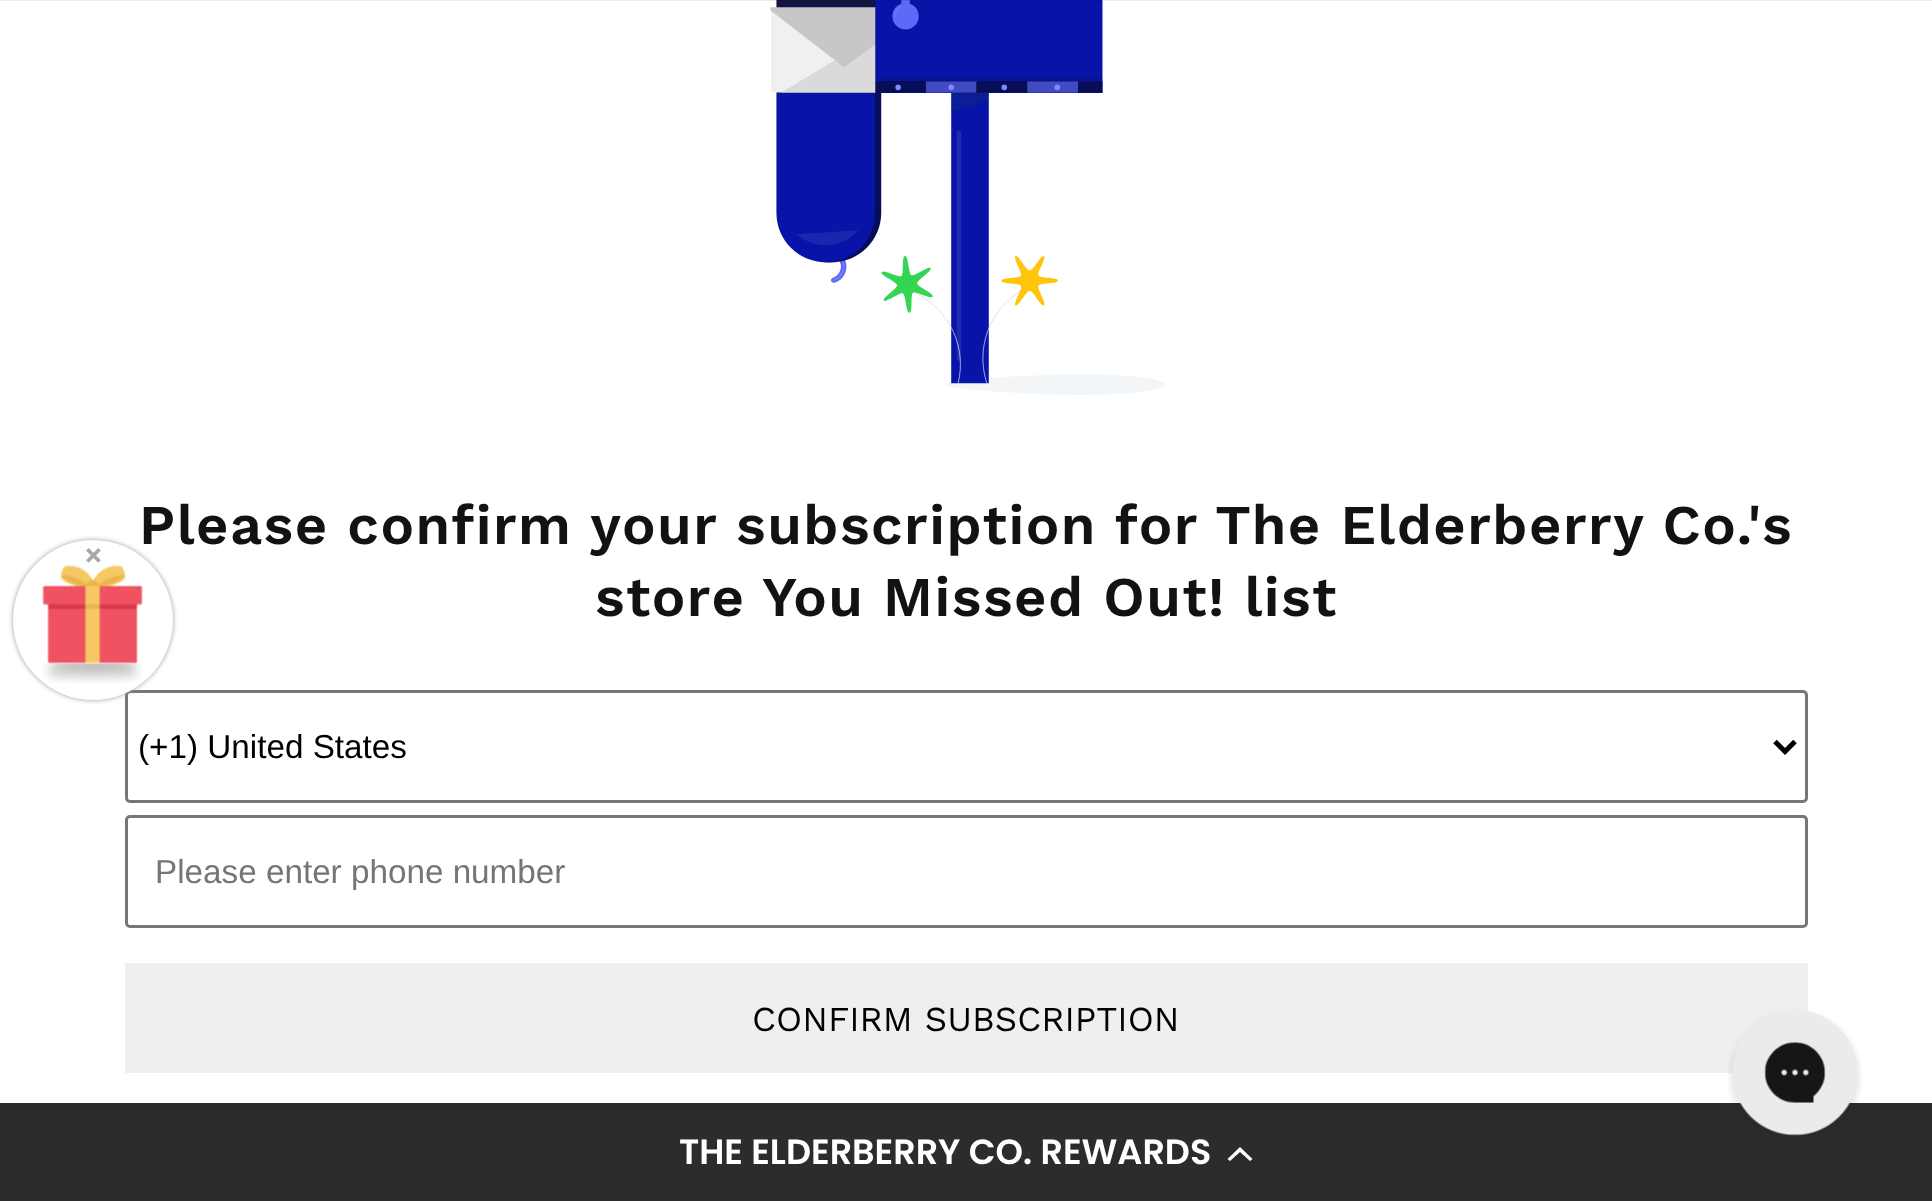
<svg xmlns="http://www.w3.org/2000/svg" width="1932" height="1201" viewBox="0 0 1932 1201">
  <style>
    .t1 { font: 600 56px Work Sans; letter-spacing: 1.5px; fill: #121212; }
    .t2 { font: bold 32px Roboto; fill: #a8a8a8; }
    .t3 { font: 33.25px Liberation Sans; fill: #000; }
    .t4 { font: 33.25px Liberation Sans; fill: #757575; }
    .t5 { font: 35px Work Sans; fill: #000; }
    .t6 { font: 600 35px Poppins; fill: #fff; }
  </style>
  <rect width="100%" height="100%" fill="#fff"/>
  <image x="770" y="0" width="395" height="395" href="images/2.png"/>
  <rect x="0" y="0" width="1932" height="1" fill="#12121214"/>
  <rect x="126.5" y="691.5" width="1680" height="110" rx="3.5" fill="none" stroke="#767676" stroke-width="3"/>
  <rect x="13" y="540" width="160" height="160" rx="80" fill="#9d9d9d" filter="blur(2.5px)"/>
  <text x="139" y="544" class="t1">Please confirm your subscription for The Elderberry Co.'s</text>
  <circle cx="93" cy="620" r="80" fill="#fff"/>
  <image x="42" y="565" width="101" height="118" href="images/1.png"/>
  <text x="85" y="566" class="t2">×</text>
  <text x="595" y="616" class="t1">store You Missed Out! list</text>
  <path d="M1775 741.5L1785 751.5L1795 741.5" fill="none" stroke="#000" stroke-width="5"/>
  <text x="138" y="758" class="t3">(+1) United States</text>
  <rect x="126.5" y="816.5" width="1680" height="110" rx="3.5" fill="none" stroke="#767676" stroke-width="3"/>
  <text x="155" y="883" class="t4">Please enter phone number</text>
  <rect x="125" y="963" width="1683" height="110" fill="#efefef"/>
  <text x="752" y="1031" class="t5">CONFIRM SUBSCRIPTION</text>
  <rect x="0" y="1103" width="1932" height="98" fill="#2c2c2c"/>
  <image x="1728" y="1009" width="134" height="127" href="images/3.png"/>
  <text x="679" y="1164" class="t6">THE ELDERBERRY CO. REWARDS</text>
  <path d="M1240 1152L1230 1161L1227.5 1159L1240 1147L1252.5 1159L1250 1161Z" fill="#fff"/>
</svg>
